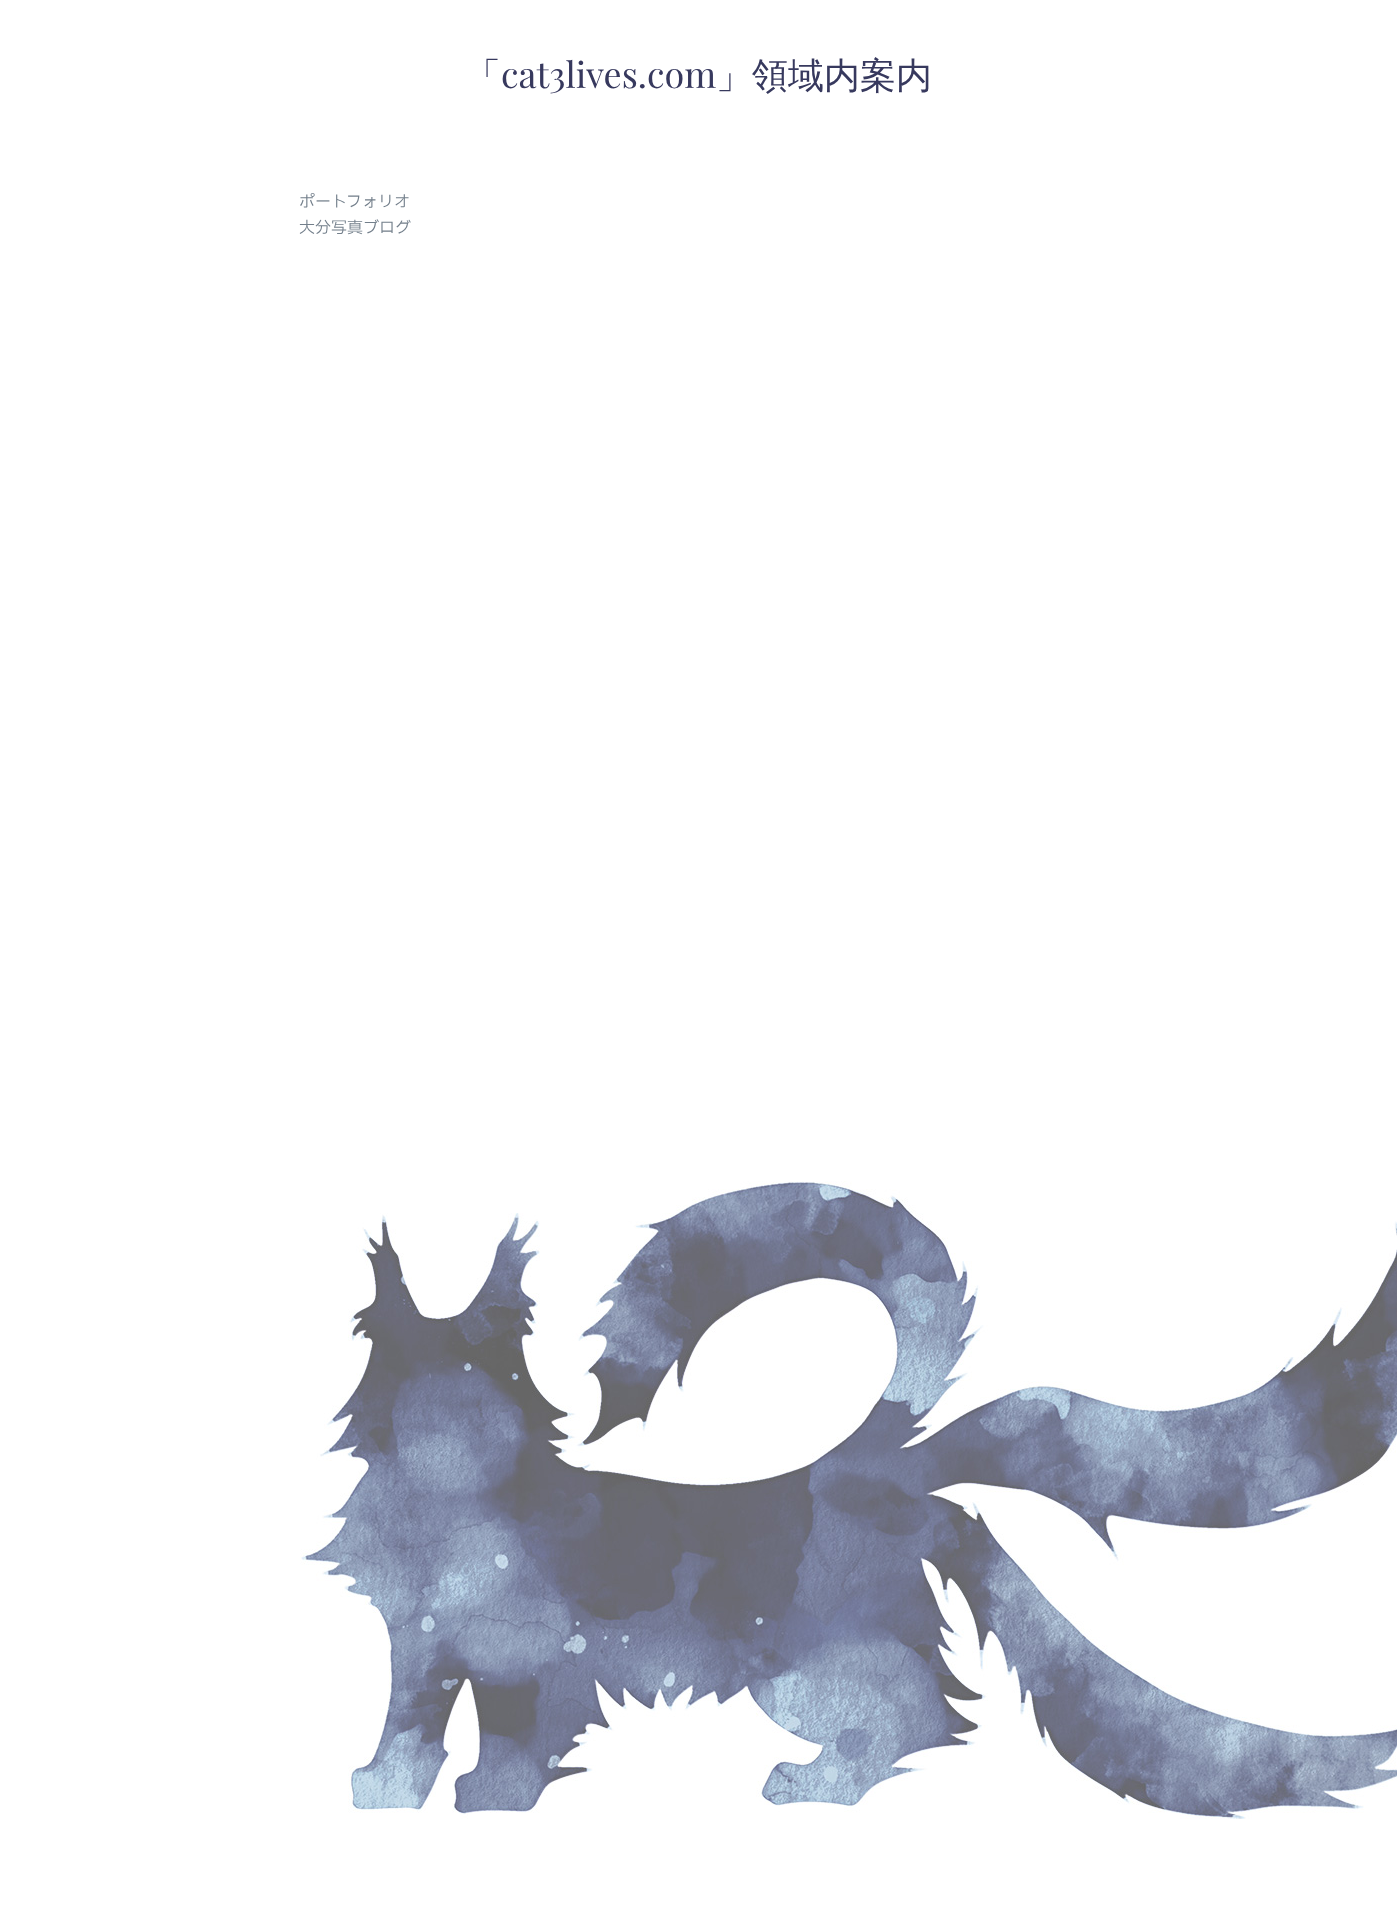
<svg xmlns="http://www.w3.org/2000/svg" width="1397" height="1909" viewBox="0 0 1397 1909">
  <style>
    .t1 { font: 500 36px WenQuanYi Zen Hei; fill: #37395e; }
    .t2 { font: 36px Playfair Display; fill: #37395e; }
    .t3 { font: 16px IBM Plex Sans JP; fill: #737f8b; }
  </style>
  <rect width="100%" height="100%" fill="#fff"/>
  <text x="465" y="88" class="t1">「</text>
  <text x="501" y="88" class="t2">cat3lives.com</text>
  <text x="716" y="88" class="t1">」領域内案内</text>
  <text x="299" y="207" class="t3">ポートフォリオ</text>
  <text x="299" y="233" class="t3">大分写真ブログ</text>
  <image x="300" y="1181" width="1097" height="638" href="images/1.png"/>
</svg>
